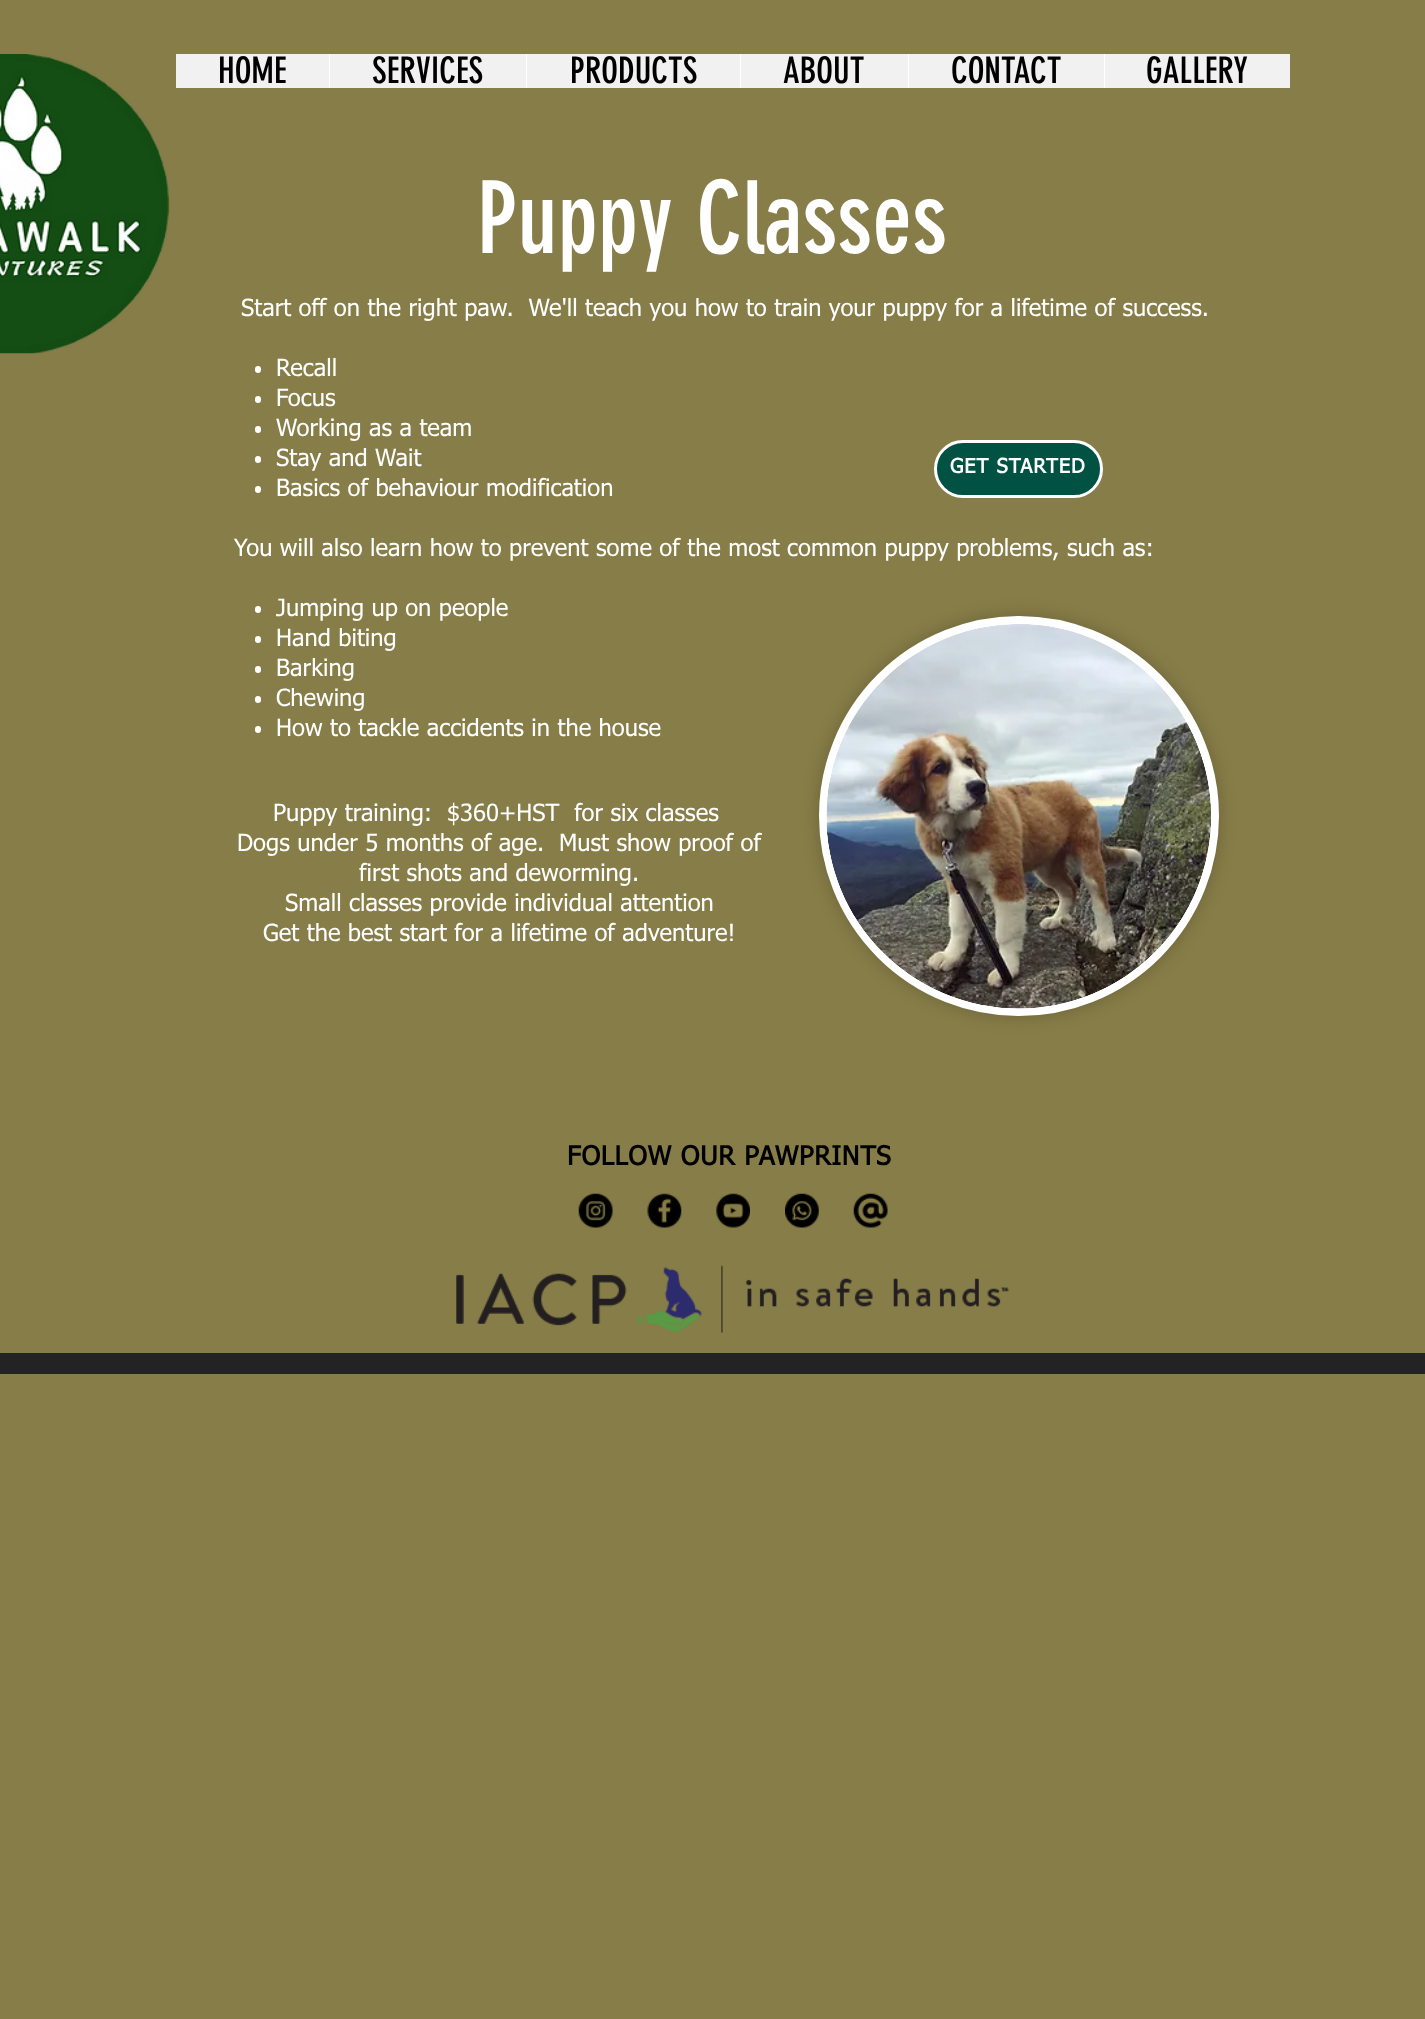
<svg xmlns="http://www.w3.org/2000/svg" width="1425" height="2019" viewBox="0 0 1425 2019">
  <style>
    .t1 { font: 36px 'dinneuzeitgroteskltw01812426'; fill: #000; }
    .t2 { font: 98.75px 'dinneuzeitgroteskltw01812426'; fill: #fff; }
    .t3 { font: 23.75px tahoma; fill: #fff; }
    .t4 { font: bold 20px tahoma; letter-spacing: 1px; fill: #fff; }
    .t5 { font: bold 26.25px tahoma; letter-spacing: 0.75px; fill: #000; }
  </style>
  <rect width="100%" height="100%" fill="#877d48"/>
  <image x="0" y="54" width="170" height="300" href="images/1.png"/>
  <rect x="176" y="54" width="1114" height="34" fill="#f1f1f1"/>
  <text x="218" y="83" class="t1">HOME</text>
  <rect x="329" y="54" width="1" height="34" fill="#fff"/>
  <text x="372" y="83" class="t1">SERVICES</text>
  <rect x="526" y="54" width="1" height="34" fill="#fff"/>
  <text x="570" y="83" class="t1">PRODUCTS</text>
  <rect x="740" y="54" width="1" height="34" fill="#fff"/>
  <text x="783" y="83" class="t1">ABOUT</text>
  <rect x="908" y="54" width="1" height="34" fill="#fff"/>
  <text x="951" y="83" class="t1">CONTACT</text>
  <rect x="1104" y="54" width="1" height="34" fill="#fff"/>
  <text x="1146" y="83" class="t1">GALLERY</text>
  <text x="477" y="253" class="t2">Puppy Classes</text>
  <text x="241" y="316" class="t3" xml:space="preserve">Start off on the right paw.  We'll teach you how to train your puppy for a lifetime of success.</text>
  <rect x="255" y="366" width="6" height="7" rx="3" fill="#fff"/>
  <text x="276" y="376" class="t3">Recall</text>
  <rect x="255" y="396" width="6" height="7" rx="3" fill="#fff"/>
  <text x="276" y="406" class="t3">Focus</text>
  <rect x="255" y="426" width="6" height="7" rx="3" fill="#fff"/>
  <text x="276" y="436" class="t3">Working as a team</text>
  <rect x="255" y="456" width="6" height="7" rx="3" fill="#fff"/>
  <text x="276" y="466" class="t3">Stay and Wait</text>
  <rect x="255" y="486" width="6" height="7" rx="3" fill="#fff"/>
  <text x="276" y="496" class="t3">Basics of behaviour modification</text>
  <text x="234" y="556" class="t3">You will also learn how to prevent some of the most common puppy problems, such as:</text>
  <rect x="255" y="606" width="6" height="7" rx="3" fill="#fff"/>
  <text x="276" y="616" class="t3">Jumping up on people</text>
  <rect x="255" y="636" width="6" height="7" rx="3" fill="#fff"/>
  <text x="276" y="646" class="t3">Hand biting</text>
  <rect x="255" y="666" width="6" height="7" rx="3" fill="#fff"/>
  <text x="276" y="676" class="t3">Barking</text>
  <rect x="255" y="696" width="6" height="7" rx="3" fill="#fff"/>
  <text x="276" y="706" class="t3">Chewing</text>
  <rect x="255" y="726" width="6" height="7" rx="3" fill="#fff"/>
  <text x="276" y="736" class="t3">How to tackle accidents in the house</text>
  <rect x="935.5" y="441.5" width="166" height="55" rx="27.5" fill="#015243" stroke="#fff" stroke-width="3"/>
  <text x="950" y="473" class="t4">GET STARTED</text>
  <text x="273" y="821" class="t3" xml:space="preserve">Puppy training:  $360+HST  for six classes</text>
  <text x="237" y="851" class="t3" xml:space="preserve">Dogs under 5 months of age.  Must show proof of</text>
  <text x="359" y="881" class="t3">first shots and deworming.</text>
  <text x="285" y="911" class="t3">Small classes provide individual attention</text>
  <text x="263" y="941" class="t3">Get the best start for a lifetime of adventure!</text>
  <rect x="819" y="616" width="400" height="400" rx="200" fill="#00000033" filter="blur(9px)"/>
  <circle cx="1019" cy="816" r="196" fill="#fff" stroke="#fff" stroke-width="8"/>
  <image x="826" y="624" width="385" height="385" href="images/2.png"/>
  <text x="567" y="1165" class="t5">FOLLOW OUR PAWPRINTS</text>
  <image x="578" y="1193" width="35" height="35" href="images/3.png"/>
  <image x="647" y="1193" width="35" height="35" href="images/4.png"/>
  <image x="716" y="1193" width="34" height="35" href="images/5.png"/>
  <image x="785" y="1193" width="34" height="35" href="images/6.png"/>
  <image x="853" y="1193" width="35" height="35" href="images/7.png"/>
  <image x="456" y="1265" width="553" height="68" href="images/8.png"/>
  <rect x="0" y="1353" width="1425" height="21" fill="#242323"/>
</svg>
